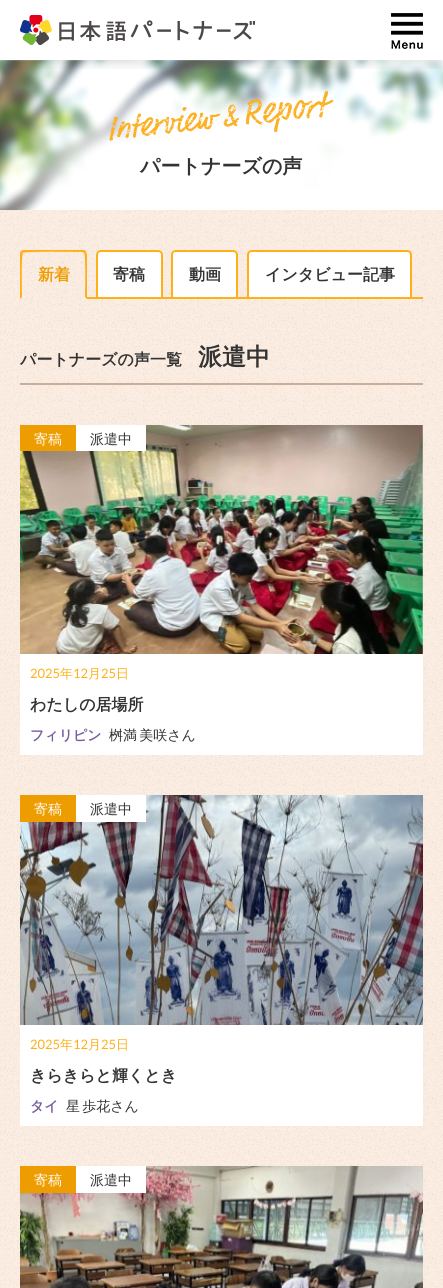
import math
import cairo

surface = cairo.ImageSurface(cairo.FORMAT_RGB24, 443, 1288)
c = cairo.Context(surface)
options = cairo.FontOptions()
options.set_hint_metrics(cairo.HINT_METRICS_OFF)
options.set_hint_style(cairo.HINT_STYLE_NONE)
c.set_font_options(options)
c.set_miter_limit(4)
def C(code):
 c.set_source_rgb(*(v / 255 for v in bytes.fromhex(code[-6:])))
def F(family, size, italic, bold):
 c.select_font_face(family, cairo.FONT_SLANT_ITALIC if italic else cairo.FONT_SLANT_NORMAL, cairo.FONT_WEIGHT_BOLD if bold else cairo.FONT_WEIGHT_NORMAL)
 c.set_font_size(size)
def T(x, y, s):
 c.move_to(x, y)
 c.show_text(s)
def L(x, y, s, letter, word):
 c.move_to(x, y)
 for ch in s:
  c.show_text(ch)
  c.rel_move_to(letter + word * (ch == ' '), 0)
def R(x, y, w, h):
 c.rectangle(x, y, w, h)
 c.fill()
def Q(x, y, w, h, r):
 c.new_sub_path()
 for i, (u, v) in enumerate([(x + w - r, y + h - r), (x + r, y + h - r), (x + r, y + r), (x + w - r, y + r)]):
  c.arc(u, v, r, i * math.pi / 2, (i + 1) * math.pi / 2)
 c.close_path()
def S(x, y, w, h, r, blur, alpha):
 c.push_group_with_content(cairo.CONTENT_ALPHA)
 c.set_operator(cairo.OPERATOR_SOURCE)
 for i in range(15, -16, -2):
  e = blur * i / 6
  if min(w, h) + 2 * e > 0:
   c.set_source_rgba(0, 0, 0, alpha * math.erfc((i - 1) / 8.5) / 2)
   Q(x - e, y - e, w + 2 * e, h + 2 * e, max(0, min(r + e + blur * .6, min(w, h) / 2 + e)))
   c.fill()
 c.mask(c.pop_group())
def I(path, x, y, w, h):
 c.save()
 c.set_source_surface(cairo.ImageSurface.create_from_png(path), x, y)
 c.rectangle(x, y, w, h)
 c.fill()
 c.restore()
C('ffffff')
c.paint()
I('3.png',0,60,443,150)
c.save()
c.rectangle(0,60,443,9)
c.clip()
C('000000')
S(0,5,443,60,0,5,.1)
c.restore()
I('1.png',20,15,235,30)
I('2.png',391,13,32,36)
I('4.png',109,91,225,50)
F('WenQuanYi Zen Hei',20,0,1)
C('333333')
T(140,173,'パートナーズの声')
I('5.png',0,210,443,1078)
I('6.png',20,230,403,936)
C('ffb018')
R(87,297,336,2)
I('7.png',20,250,67,49)
c.new_path()
c.move_to(25,250)
c.curve_to(24,250,22,250,21,251)
c.line_to(23,253)
c.curve_to(25,251,77,252,82,252)
c.line_to(84,253)
c.line_to(86,251)
c.curve_to(85,250,84,250,82,250)
c.close_path()
c.fill()
c.new_path()
c.move_to(87,299)
c.line_to(87,255)
c.curve_to(87,254,86,252,86,251)
c.line_to(84,253)
c.curve_to(86,255,85,292,85,297)
c.close_path()
c.fill()
c.new_path()
c.move_to(20,299)
c.line_to(22,297)
c.curve_to(22,292,21,255,23,253)
c.line_to(21,251)
c.curve_to(20,252,20,254,20,255)
c.close_path()
c.fill()
F('WenQuanYi Zen Hei',16,0,1)
C('ee9d00')
T(38,280,'新着')
C('ffffff')
c.new_path()
c.move_to(101,250)
c.line_to(158,250)
c.curve_to(161,250,163,252,163,255)
c.line_to(163,297)
c.line_to(96,297)
c.line_to(96,255)
c.curve_to(96,252,98,250,101,250)
c.close_path()
c.fill()
C('ffb018')
c.set_fill_rule(cairo.FILL_RULE_EVEN_ODD)
c.new_path()
c.move_to(101,250)
c.line_to(158,250)
c.curve_to(161,250,163,252,163,255)
c.line_to(163,297)
c.line_to(96,297)
c.line_to(96,255)
c.curve_to(96,252,98,250,101,250)
c.close_path()
c.move_to(101,252)
c.line_to(158,252)
c.curve_to(160,252,161,253,161,255)
c.line_to(161,297)
c.line_to(98,297)
c.line_to(98,255)
c.curve_to(98,253,99,252,101,252)
c.close_path()
c.fill()
C('333333')
T(113,280,'寄稿')
C('ffffff')
c.new_path()
c.move_to(176,250)
c.line_to(233,250)
c.curve_to(236,250,238,252,238,255)
c.line_to(238,297)
c.line_to(171,297)
c.line_to(171,255)
c.curve_to(171,252,173,250,176,250)
c.close_path()
c.fill()
C('ffb018')
c.new_path()
c.move_to(176,250)
c.line_to(233,250)
c.curve_to(236,250,238,252,238,255)
c.line_to(238,297)
c.line_to(171,297)
c.line_to(171,255)
c.curve_to(171,252,173,250,176,250)
c.close_path()
c.move_to(176,252)
c.line_to(233,252)
c.curve_to(235,252,236,253,236,255)
c.line_to(236,297)
c.line_to(173,297)
c.line_to(173,255)
c.curve_to(173,253,174,252,176,252)
c.close_path()
c.fill()
C('333333')
T(189,280,'動画')
C('ffffff')
c.new_path()
c.move_to(252,250)
c.line_to(407,250)
c.curve_to(410,250,412,252,412,255)
c.line_to(412,297)
c.line_to(247,297)
c.line_to(247,255)
c.curve_to(247,252,249,250,252,250)
c.close_path()
c.fill()
C('ffb018')
c.new_path()
c.move_to(252,250)
c.line_to(407,250)
c.curve_to(410,250,412,252,412,255)
c.line_to(412,297)
c.line_to(247,297)
c.line_to(247,255)
c.curve_to(247,252,249,250,252,250)
c.close_path()
c.move_to(252,252)
c.line_to(407,252)
c.curve_to(409,252,410,253,410,255)
c.line_to(410,297)
c.line_to(249,297)
c.line_to(249,255)
c.curve_to(249,253,250,252,252,252)
c.close_path()
c.fill()
C('333333')
T(265,280,'インタビュー記事')
C('c8ae9b')
R(20,383,403,2)
C('333333')
T(20,365,'パートナーズの声一覧')
F('WenQuanYi Zen Hei',24,0,1)
T(198,365,'派遣中')
C('ffffff')
R(20,425,403,330)
I('8.png',20,425,403,229)
C('ee9d00')
R(20,425,56,26)
F('WenQuanYi Zen Hei Medium',14,0,0)
C('ffffff')
T(34,444,'寄稿')
R(76,425,70,26)
C('333333')
T(90,444,'派遣中')
F('Lato',13,0,0)
C('ffb018')
T(30,678,'2025')
F('WenQuanYi Zen Hei Medium',13,0,0)
T(60,678,'年')
F('Lato',13,0,0)
T(73,678,'12')
F('WenQuanYi Zen Hei Medium',13,0,0)
T(88,678,'月')
F('Lato',13,0,0)
T(101,678,'25')
F('WenQuanYi Zen Hei Medium',13,0,0)
T(116,678,'日')
F('WenQuanYi Zen Hei',16,0,1)
C('333333')
T(30,710,'わたしの居場所')
F('WenQuanYi Zen Hei',14,0,1)
C('765d9d')
T(30,740,'フィリピン')
F('WenQuanYi Zen Hei Medium',14,0,0)
C('333333')
L(109,740,'桝満 美咲さん',0,-2)
C('ffffff')
R(20,1025,403,101)
I('9.png',20,795,403,230)
C('ee9d00')
R(20,795,56,27)
C('ffffff')
T(34,814,'寄稿')
R(76,795,70,27)
C('333333')
T(90,814,'派遣中')
F('Lato',13,0,0)
C('ffb018')
T(30,1049,'2025')
F('WenQuanYi Zen Hei Medium',13,0,0)
T(60,1049,'年')
F('Lato',13,0,0)
T(73,1049,'12')
F('WenQuanYi Zen Hei Medium',13,0,0)
T(88,1049,'月')
F('Lato',13,0,0)
T(101,1049,'25')
F('WenQuanYi Zen Hei Medium',13,0,0)
T(116,1049,'日')
F('WenQuanYi Zen Hei',16,0,1)
C('333333')
T(30,1081,'きらきらと輝くとき')
F('WenQuanYi Zen Hei',14,0,1)
C('765d9d')
T(30,1111,'タイ')
F('WenQuanYi Zen Hei Medium',14,0,0)
C('333333')
L(66,1111,'星 歩花さん',0,-2)
I('10.png',20,1166,403,122)
C('ee9d00')
R(20,1166,56,27)
C('ffffff')
T(34,1185,'寄稿')
R(76,1166,70,27)
C('333333')
T(90,1185,'派遣中')
surface.write_to_png('o.png')
